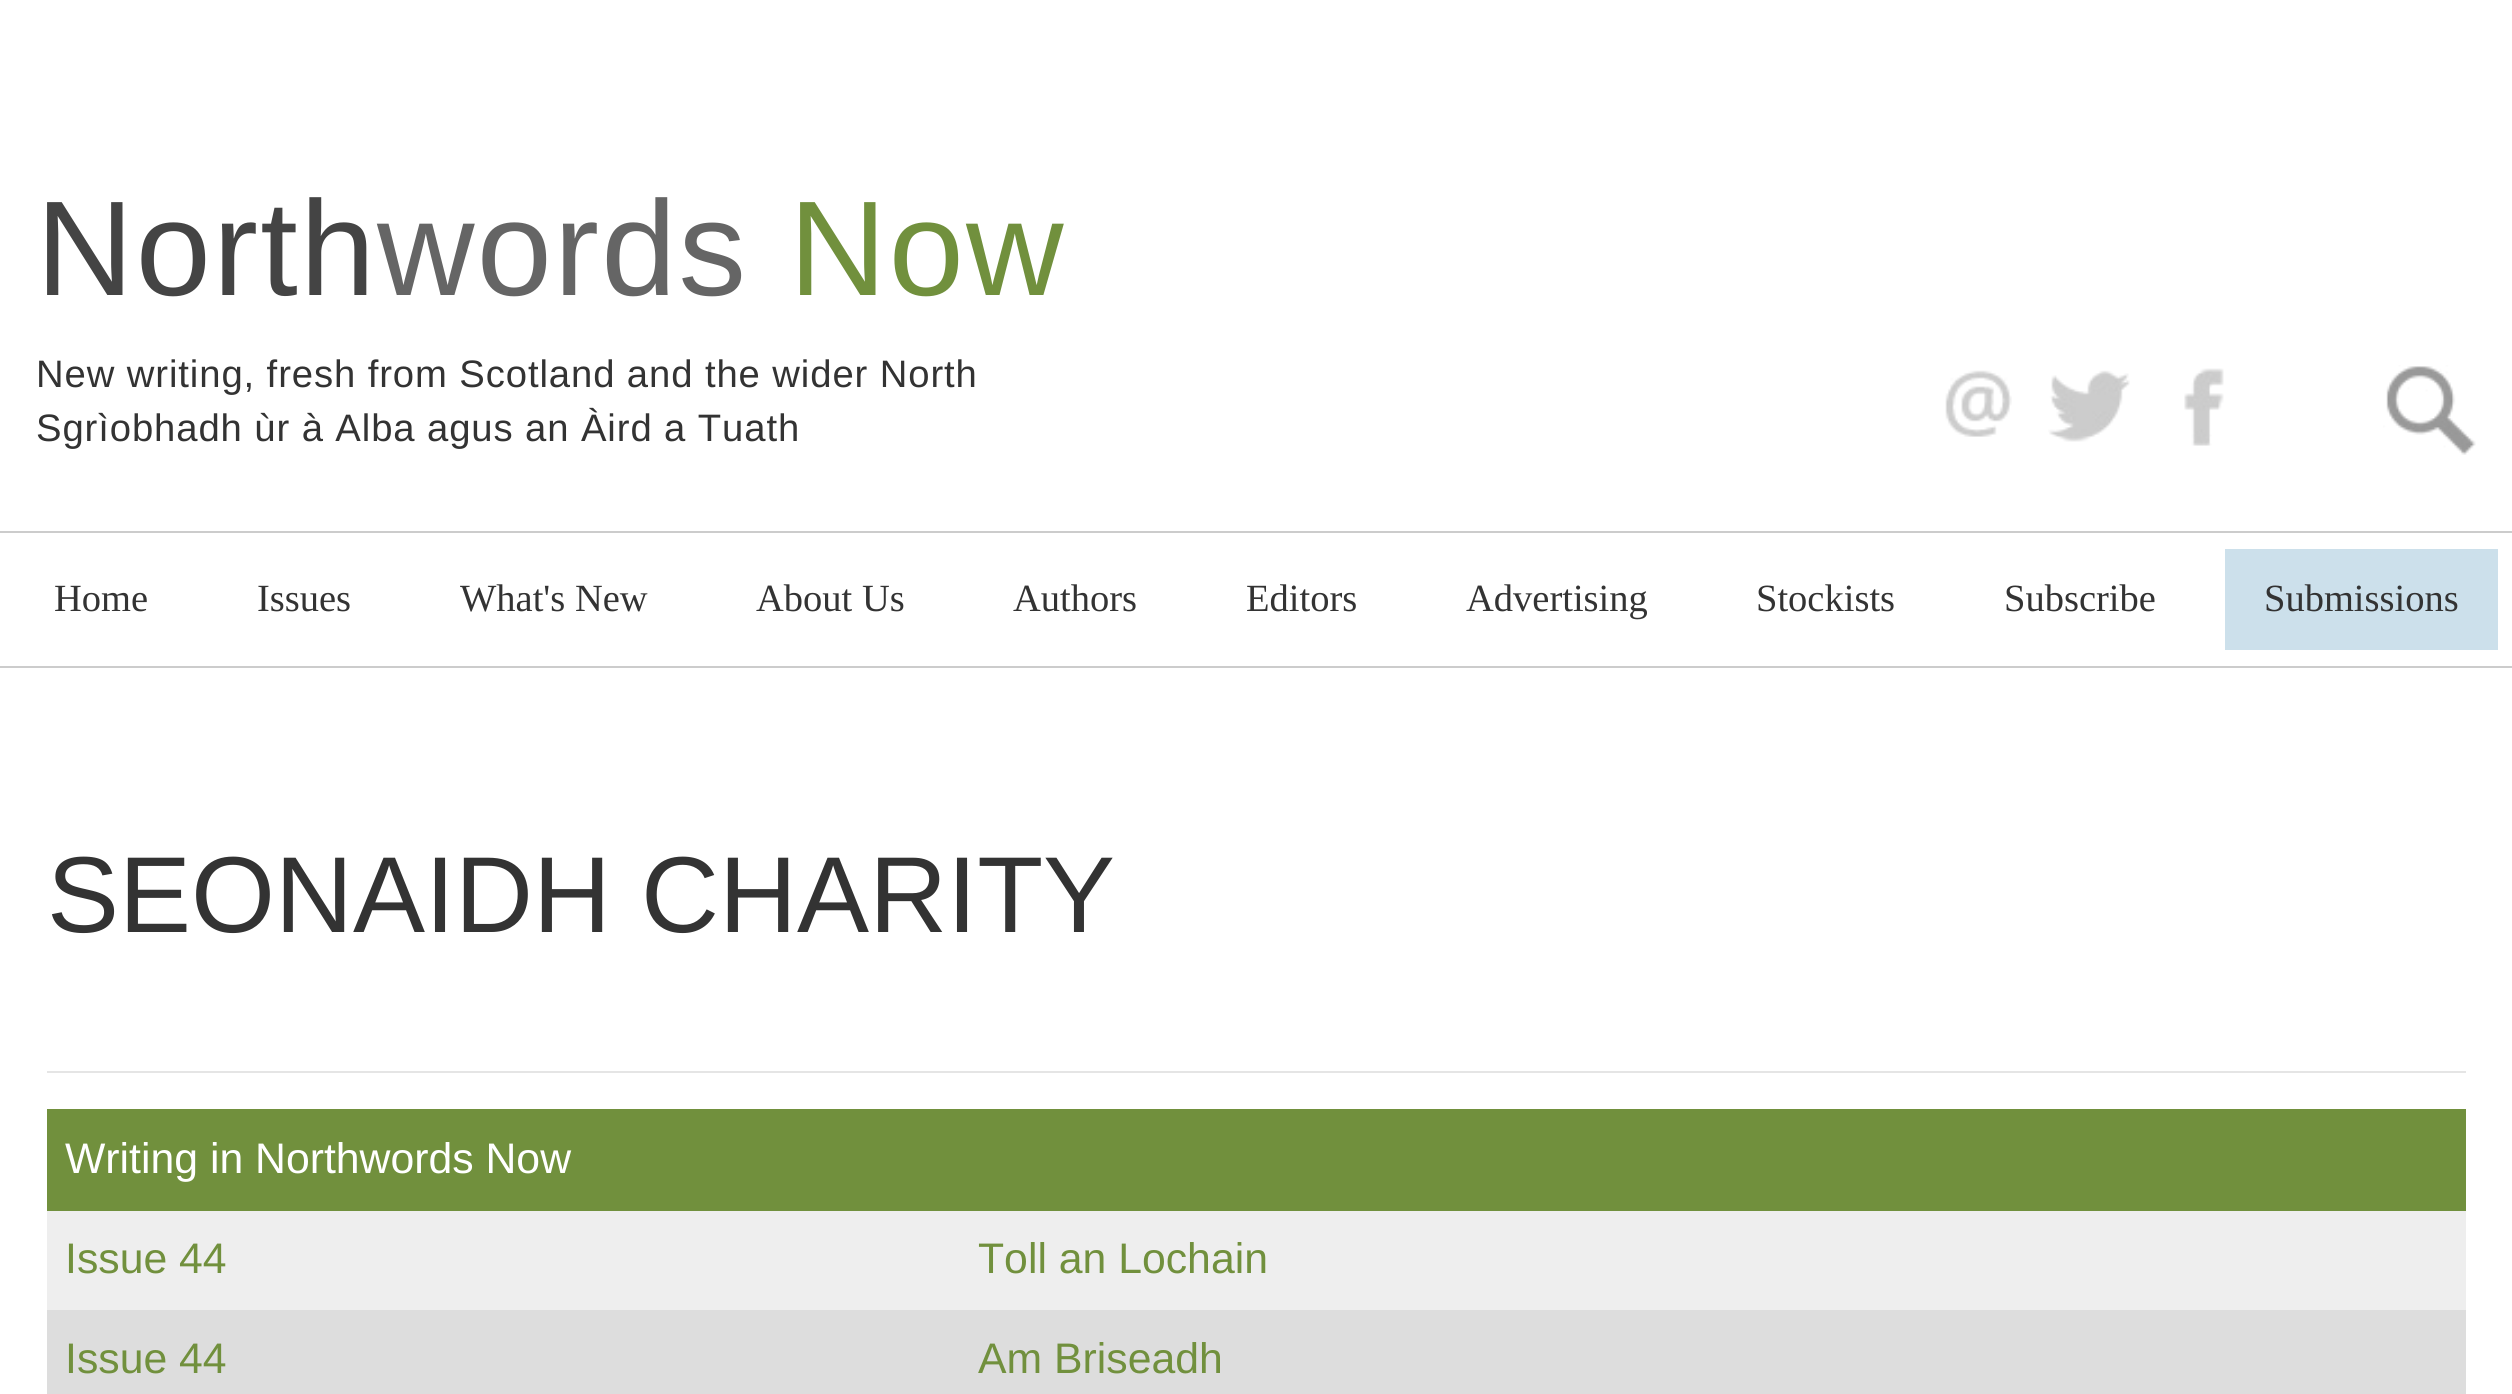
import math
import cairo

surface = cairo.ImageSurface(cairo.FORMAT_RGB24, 2512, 1394)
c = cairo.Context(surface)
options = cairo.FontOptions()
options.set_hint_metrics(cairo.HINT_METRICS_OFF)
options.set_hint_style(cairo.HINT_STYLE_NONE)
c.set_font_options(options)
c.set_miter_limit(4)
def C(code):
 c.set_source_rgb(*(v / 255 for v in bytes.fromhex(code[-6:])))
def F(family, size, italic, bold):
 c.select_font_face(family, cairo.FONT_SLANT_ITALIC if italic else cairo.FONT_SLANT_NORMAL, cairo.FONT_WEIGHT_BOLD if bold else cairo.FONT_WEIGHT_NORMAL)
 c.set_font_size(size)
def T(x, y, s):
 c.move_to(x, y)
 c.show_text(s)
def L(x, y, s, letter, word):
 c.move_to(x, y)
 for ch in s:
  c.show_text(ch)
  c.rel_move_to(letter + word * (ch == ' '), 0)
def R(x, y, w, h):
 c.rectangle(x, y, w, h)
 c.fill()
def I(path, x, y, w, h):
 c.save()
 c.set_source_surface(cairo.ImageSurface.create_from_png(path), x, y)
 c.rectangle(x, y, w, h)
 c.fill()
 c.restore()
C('ffffff')
c.paint()
F('Liberation Sans',135,0,0)
C('444444')
L(36,295,'North',2.25,0)
C('656565')
L(377,295,'words',2.25,0)
C('71903d')
L(789,295,'Now',2.25,0)
F('Liberation Sans',38.25,0,0)
C('333333')
L(36,387,'New writing, fresh from Scotland and the wider North',.9,0)
L(36,441,'Sgrìobhadh ùr à Alba agus an Àird a Tuath',.9,0)
I('1.png',1945,370,67,67)
I('2.png',2048,370,82,72)
I('3.png',2184,368,40,78)
I('4.png',2383,365,93,90)
C('cccccc')
R(0,531,2512,2)
R(0,666,2512,2)
F('Liberation Serif',38.5,0,0)
C('333333')
T(54,611,'Home')
T(257,611,'Issues')
T(460,611,'What\'s New')
T(756,611,'About Us')
T(1013,611,'Authors')
T(1246,611,'Editors')
T(1466,611,'Advertising')
T(1756,611,'Stockists')
T(2004,611,'Subscribe')
C('cce0eb')
R(2225,549,273,101)
C('333333')
T(2264,611,'Submissions')
F('Liberation Sans',108,0,0)
T(47,932,'SEONAIDH CHARITY')
C('e5e5e5')
R(47,1071,2419,2)
C('71903d')
R(47,1109,2419,102)
F('Liberation Sans',42.75,0,0)
C('ffffff')
T(65,1173,'Writing in Northwords Now')
C('eeeeee')
R(47,1211,2419,99)
C('71903d')
T(65,1273,'Issue 44')
T(978,1273,'Toll an Lochain')
C('dddddd')
R(47,1310,2419,84)
C('71903d')
T(65,1373,'Issue 44')
T(978,1373,'Am Briseadh')
surface.write_to_png('o.png')
